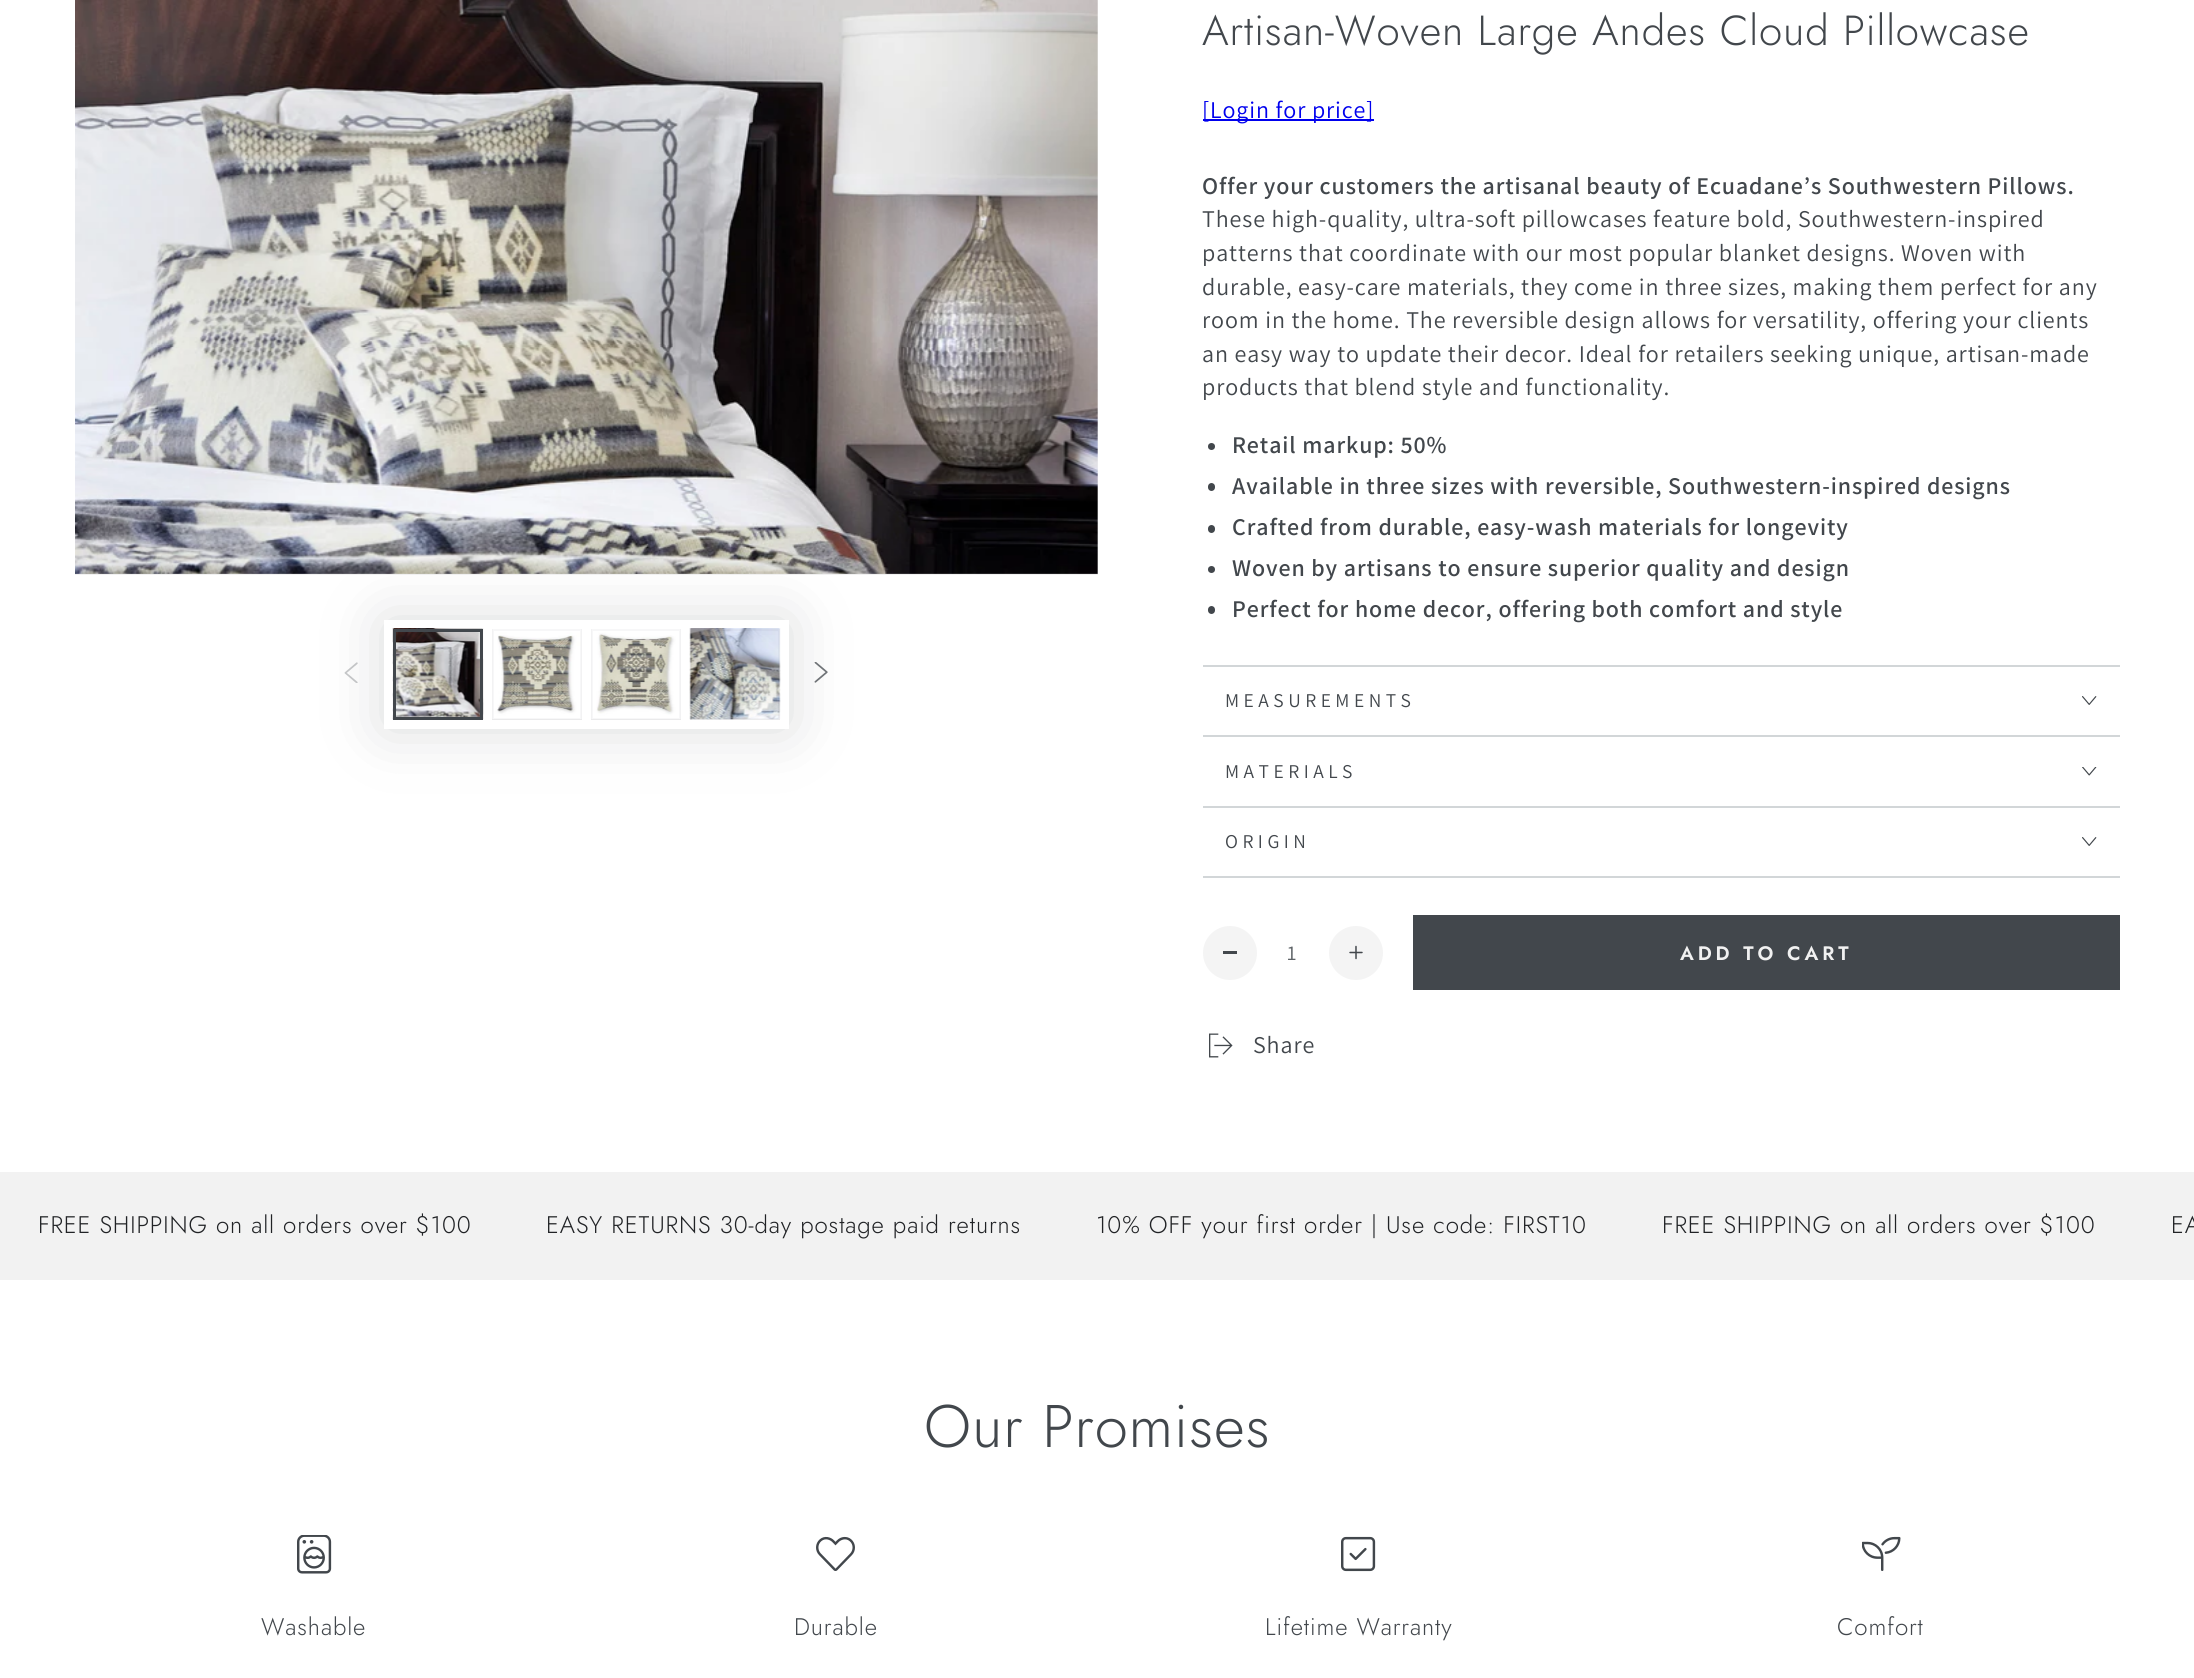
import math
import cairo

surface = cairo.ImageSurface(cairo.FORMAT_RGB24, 2194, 1678)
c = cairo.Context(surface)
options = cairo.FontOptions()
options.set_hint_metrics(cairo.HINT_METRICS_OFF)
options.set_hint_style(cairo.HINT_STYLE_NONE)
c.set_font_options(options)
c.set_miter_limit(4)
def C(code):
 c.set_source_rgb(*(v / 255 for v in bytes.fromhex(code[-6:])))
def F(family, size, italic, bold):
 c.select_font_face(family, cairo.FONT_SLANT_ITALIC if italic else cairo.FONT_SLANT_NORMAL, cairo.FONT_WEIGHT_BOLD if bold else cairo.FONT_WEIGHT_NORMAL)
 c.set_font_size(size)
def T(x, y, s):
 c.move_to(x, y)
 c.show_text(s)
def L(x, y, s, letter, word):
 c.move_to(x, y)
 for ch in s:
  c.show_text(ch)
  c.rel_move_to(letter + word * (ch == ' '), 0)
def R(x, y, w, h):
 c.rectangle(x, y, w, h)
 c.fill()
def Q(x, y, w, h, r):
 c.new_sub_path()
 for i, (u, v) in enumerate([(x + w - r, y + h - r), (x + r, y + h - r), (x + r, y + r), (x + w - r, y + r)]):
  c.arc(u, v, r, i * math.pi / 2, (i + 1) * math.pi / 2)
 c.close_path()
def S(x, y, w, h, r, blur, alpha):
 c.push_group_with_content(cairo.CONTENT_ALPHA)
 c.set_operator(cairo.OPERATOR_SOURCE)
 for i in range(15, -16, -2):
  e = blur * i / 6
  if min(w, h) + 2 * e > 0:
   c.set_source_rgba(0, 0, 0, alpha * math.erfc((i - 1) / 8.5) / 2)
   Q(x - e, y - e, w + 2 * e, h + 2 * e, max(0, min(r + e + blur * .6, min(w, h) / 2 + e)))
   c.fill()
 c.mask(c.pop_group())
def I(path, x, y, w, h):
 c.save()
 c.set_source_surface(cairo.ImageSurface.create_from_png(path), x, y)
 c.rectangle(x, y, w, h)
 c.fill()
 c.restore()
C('ffffff')
c.paint()
C('f1f1f1')
R(75,0,1023,575)
I('1.png',75,0,1023,574)
c.save()
c.set_fill_rule(cairo.FILL_RULE_EVEN_ODD)
c.new_path()
c.move_to(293,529)
c.line_to(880,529)
c.line_to(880,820)
c.line_to(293,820)
c.close_path()
c.move_to(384,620)
c.line_to(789,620)
c.line_to(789,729)
c.line_to(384,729)
c.close_path()
c.clip()
C('42474c')
S(384,620,405,109,0,30,.2)
c.restore()
I('2.png',392,628,92,92)
c.rectangle(394.5,630.5,87,88)
C('42474c')
c.set_line_width(3)
c.stroke()
C('f1f1f1')
R(492,629,90,91)
I('3.png',492,629,90,90)
c.rectangle(493,630,88,89)
c.set_source_rgba(0.259,0.278,0.298,0.04)
c.set_line_width(2)
c.stroke()
C('f1f1f1')
R(591,629,90,91)
I('4.png',591,629,90,90)
c.rectangle(592,630,88,89)
c.set_source_rgba(0.259,0.278,0.298,0.04)
c.stroke()
C('f1f1f1')
R(690,629,90,91)
I('5.png',689,628,92,92)
c.rectangle(691,630,88,89)
c.set_source_rgba(0.259,0.278,0.298,0.04)
c.stroke()
I('6.png',344,662,14,21)
I('7.png',814,662,14,21)
F('Jost Light',42,0,0)
C('42474c')
L(1202,45,'Artisan-Woven Large Andes Cloud Pillowcase',.9,0)
C('0000ee')
R(1203,119,171,2)
F('Assistant',24,0,0)
L(1202,118,'[Login for price]',.9,0)
F('Assistant SemiBold',24,0,0)
C('42474c')
L(1202,194,'Offer your customers the artisanal beauty of Ecuadane’s Southwestern Pillows.',.9,0)
F('Assistant',24,0,0)
L(1202,227,'These high-quality, ultra-soft pillowcases feature bold, Southwestern-inspired',.9,0)
L(1202,261,'patterns that coordinate with our most popular blanket designs. Woven with',.9,0)
L(1202,295,'durable, easy-care materials, they come in three sizes, making them perfect for any',.9,0)
L(1202,328,'room in the home. The reversible design allows for versatility, offering your clients',.9,0)
L(1202,362,'an easy way to update their decor. Ideal for retailers seeking unique, artisan-made',.9,0)
L(1202,395,'products that blend style and functionality.',.9,0)
c.new_path()
c.arc(1211.5,446.5,3.5,0,2 * math.pi)
c.fill()
F('Assistant SemiBold',24,0,0)
L(1232,453,'Retail markup: 50%',.9,0)
Q(1208,483,7,8,3.5)
c.fill()
L(1232,494,'Available in three sizes with reversible, Southwestern-inspired designs',.9,0)
Q(1208,525,7,8,3.5)
c.fill()
L(1232,535,'Crafted from durable, easy-wash materials for longevity',.9,0)
c.new_path()
c.arc(1211.5,569.5,3.5,0,2 * math.pi)
c.fill()
L(1232,576,'Woven by artisans to ensure superior quality and design',.9,0)
Q(1208,606,7,8,3.5)
c.fill()
L(1232,617,'Perfect for home decor, offering both comfort and style',.9,0)
C('d2d6d8')
R(1203,665,917,2)
R(1203,735,917,2)
F('Assistant',19.5,0,0)
C('42474c')
L(1225,707,'MEASUREMENTS',4.5,0)
I('8.png',2082,696,15,9)
C('d2d6d8')
R(1203,806,917,2)
C('42474c')
L(1225,778,'MATERIALS',4.5,0)
I('9.png',2082,767,15,9)
C('d2d6d8')
R(1203,876,917,2)
C('42474c')
L(1225,848,'ORIGIN',4.5,0)
I('8.png',2082,837,15,9)
C('f4f4f4')
c.arc(1230,953,27,0,2 * math.pi)
c.fill()
C('42474c')
R(1223,951,14,3)
F('Assistant',21,0,0)
C('5e6367')
T(1287,960,'1')
C('f4f4f4')
c.new_path()
c.arc(1356,953,27,0,2 * math.pi)
c.fill()
I('10.png',1349,945,14,15)
C('42474c')
R(1413,915,707,75)
F('Jost SemiBold',19.5,0,0)
C('f1f1f1')
L(1680,960,'ADD TO CART',3.9,0)
I('11.png',1209,1033,24,25)
F('Assistant',24,0,0)
C('42474c')
L(1253,1053,'Share',.9,0)
C('f2f2f2')
R(0,1172,2194,108)
F('Jost Light',24,0,0)
C('212326')
L(38,1233,'FREE SHIPPING on all orders over $100',.9,0)
L(546,1233,'EASY RETURNS 30-day postage paid returns',.9,0)
L(1096,1233,'10% OFF your first order | Use code: FIRST10',.9,0)
L(1662,1233,'FREE SHIPPING on all orders over $100',.9,0)
L(2171,1233,'EA',.9,0)
F('Jost Light',60,0,0)
C('42474c')
L(924,1447,'Our Promises',.9,0)
I('12.png',297,1535,35,39)
F('Jost Light',24,0,0)
L(261,1635,'Washable',.9,0)
I('13.png',816,1536,39,35)
L(794,1635,'Durable',.9,0)
I('14.png',1341,1536,35,36)
L(1265,1635,'Lifetime Warranty',.9,0)
I('15.png',1862,1536,39,35)
L(1837,1635,'Comfort',.9,0)
surface.write_to_png('o.png')
